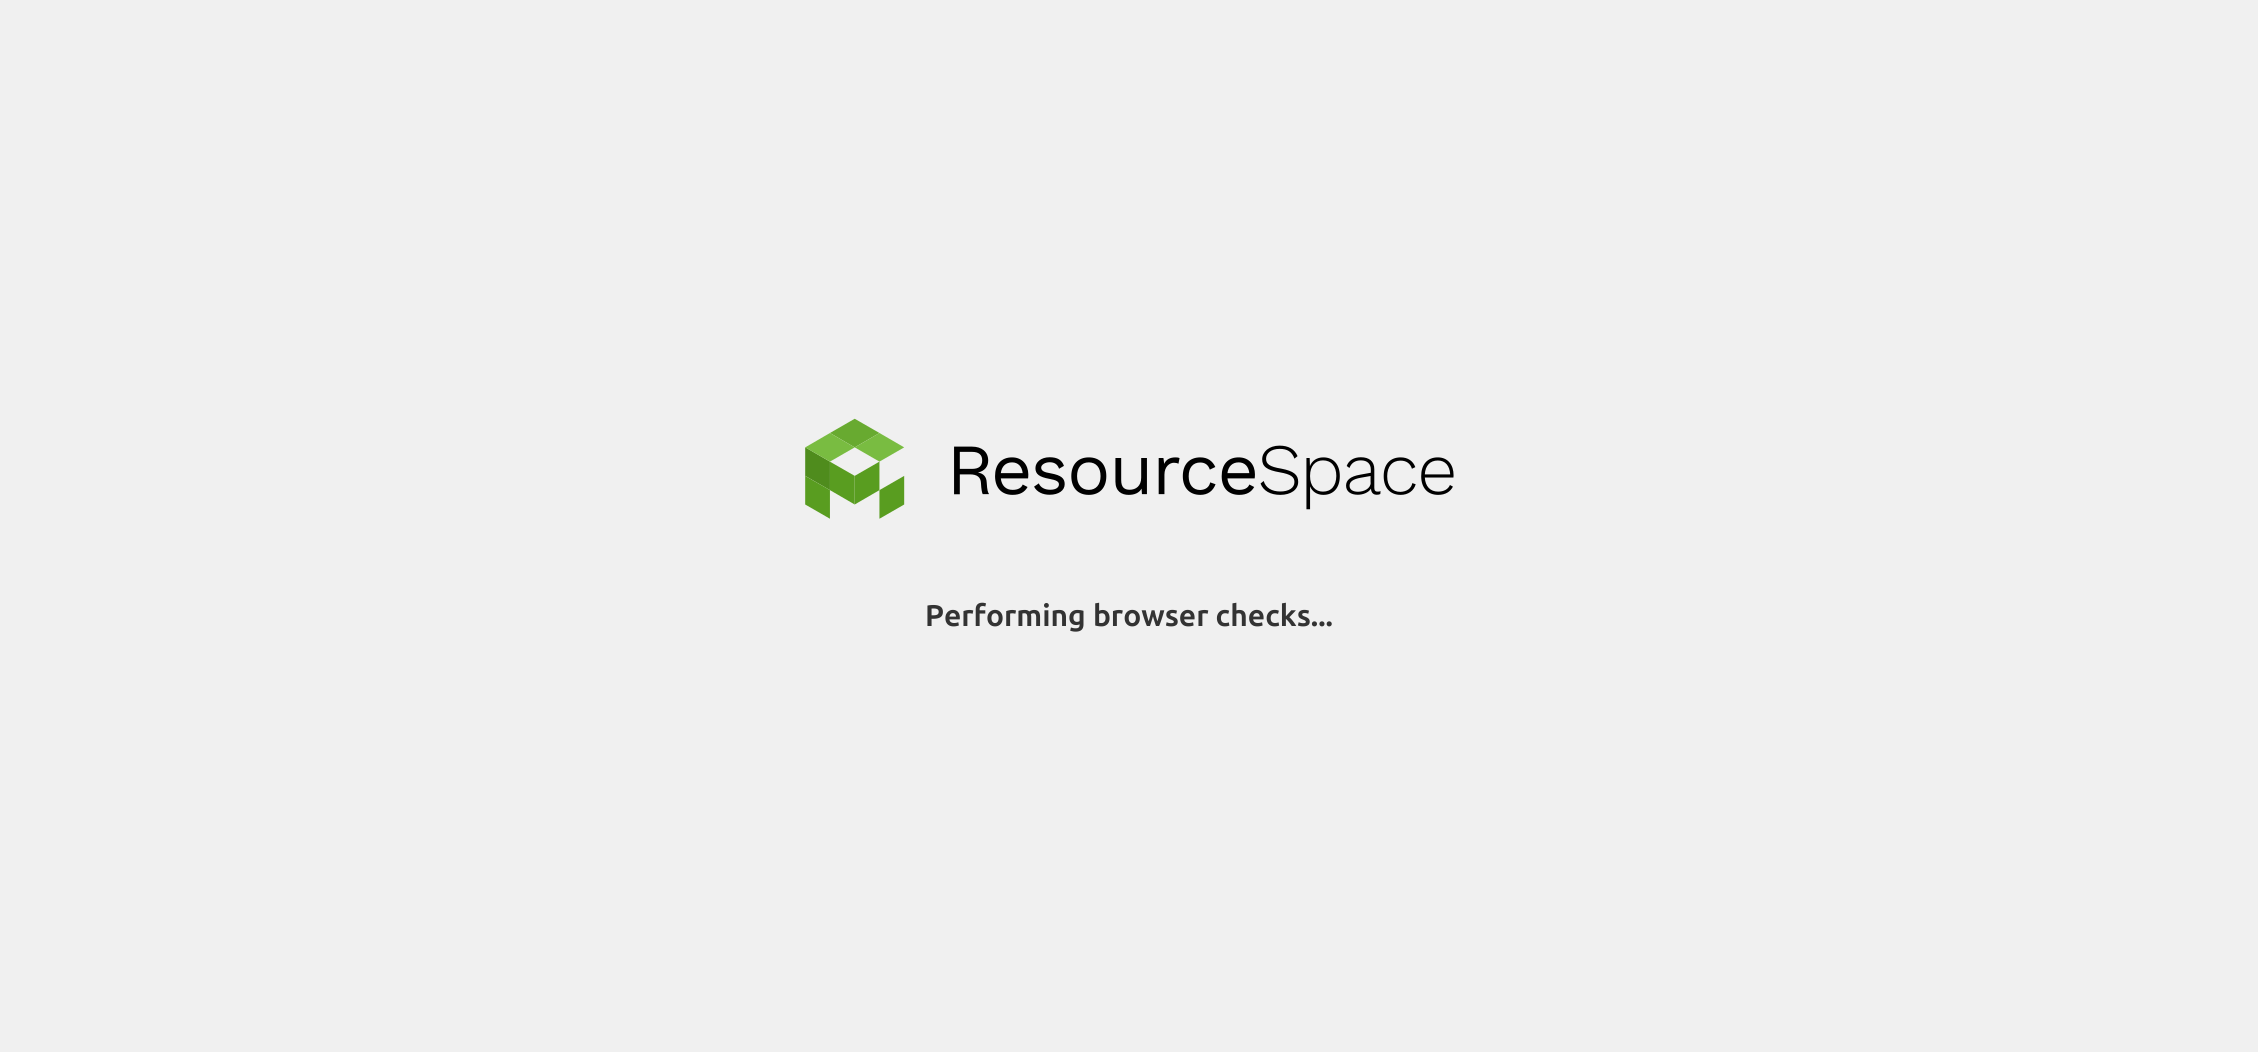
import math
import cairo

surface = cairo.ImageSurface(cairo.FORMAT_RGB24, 2258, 1052)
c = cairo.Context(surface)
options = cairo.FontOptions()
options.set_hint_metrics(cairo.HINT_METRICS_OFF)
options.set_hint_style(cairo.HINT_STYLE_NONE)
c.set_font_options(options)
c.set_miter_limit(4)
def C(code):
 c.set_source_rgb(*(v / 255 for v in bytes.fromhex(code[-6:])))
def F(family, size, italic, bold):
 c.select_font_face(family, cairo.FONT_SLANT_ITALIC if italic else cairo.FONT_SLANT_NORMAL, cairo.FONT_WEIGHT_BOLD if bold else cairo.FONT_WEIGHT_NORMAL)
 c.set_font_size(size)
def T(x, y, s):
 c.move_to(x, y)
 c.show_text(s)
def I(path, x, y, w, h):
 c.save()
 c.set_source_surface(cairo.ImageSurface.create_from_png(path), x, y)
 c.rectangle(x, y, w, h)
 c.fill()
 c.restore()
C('f0f0f0')
c.paint()
I('1.png',805,418,649,101)
F('Ubuntu',30,0,1)
C('333333')
T(925,626,'Performing browser checks...')
surface.write_to_png('o.png')
